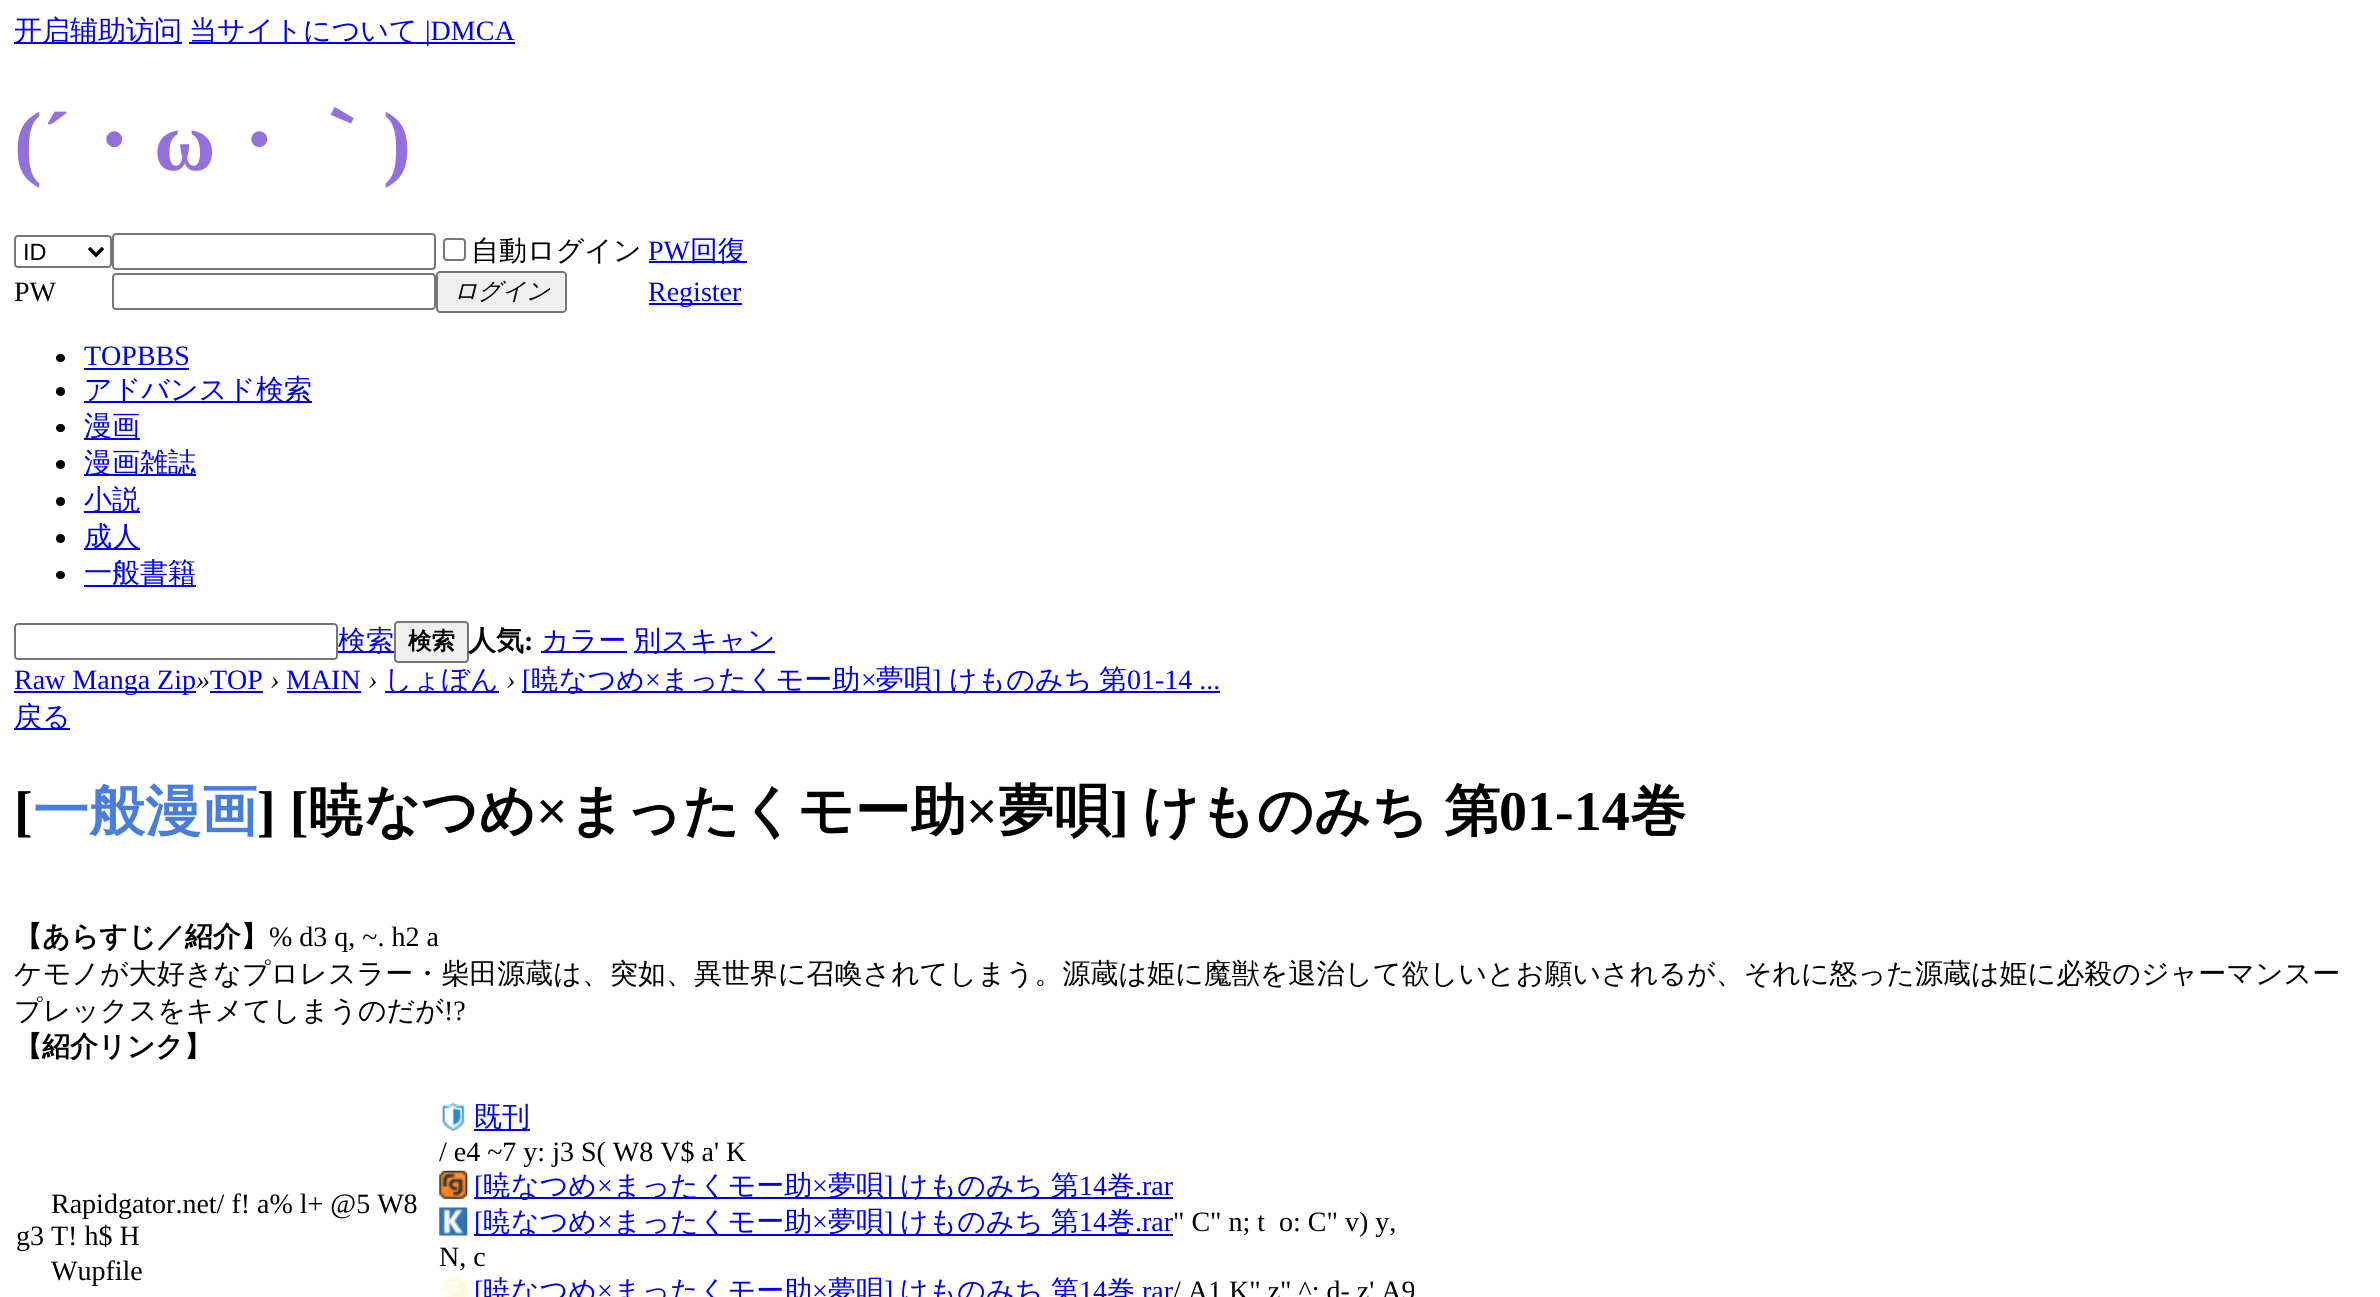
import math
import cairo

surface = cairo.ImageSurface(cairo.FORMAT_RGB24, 2380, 1297)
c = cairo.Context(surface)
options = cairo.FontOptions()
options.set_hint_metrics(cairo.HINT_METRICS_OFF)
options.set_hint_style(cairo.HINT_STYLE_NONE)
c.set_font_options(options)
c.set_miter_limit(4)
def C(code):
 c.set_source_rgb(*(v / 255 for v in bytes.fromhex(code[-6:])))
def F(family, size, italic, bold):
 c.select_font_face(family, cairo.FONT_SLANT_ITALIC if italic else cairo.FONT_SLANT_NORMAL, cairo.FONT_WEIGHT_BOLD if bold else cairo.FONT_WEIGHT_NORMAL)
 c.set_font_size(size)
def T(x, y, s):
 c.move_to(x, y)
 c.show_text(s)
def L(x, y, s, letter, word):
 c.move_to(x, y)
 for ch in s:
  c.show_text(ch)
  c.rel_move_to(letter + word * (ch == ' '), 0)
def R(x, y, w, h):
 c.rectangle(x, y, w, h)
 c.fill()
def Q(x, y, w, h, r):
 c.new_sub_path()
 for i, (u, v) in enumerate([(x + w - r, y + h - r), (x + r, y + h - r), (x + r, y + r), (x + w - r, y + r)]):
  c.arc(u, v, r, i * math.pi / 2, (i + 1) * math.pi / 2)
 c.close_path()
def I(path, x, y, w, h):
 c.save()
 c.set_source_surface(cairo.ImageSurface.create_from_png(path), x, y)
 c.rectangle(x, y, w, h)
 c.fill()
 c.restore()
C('ffffff')
c.paint()
C('0000ee')
R(14,42,168,2)
F('WenQuanYi Zen Hei Medium',28,0,0)
T(14,40,'开启辅助访问')
R(189,42,326,2)
T(189,40,'当サイトについて')
F('Liberation Serif',28,0,0)
T(425,40,'|DMCA')
F('Liberation Serif',84,0,1)
C('9370db')
T(14,170,'(´')
F('WenQuanYi Zen Hei',84,0,1)
T(70,170,'・')
F('Liberation Serif',84,0,1)
T(154,170,'ω')
F('WenQuanYi Zen Hei',84,0,1)
T(215,170,'・｀')
F('Liberation Serif',84,0,1)
T(383,170,')')
Q(15,236,96,31,3)
C('767676')
c.stroke()
c.new_path()
c.move_to(89,248)
c.line_to(96,255)
c.line_to(103,248)
C('000000')
c.set_line_width(3.5)
c.stroke()
F('Liberation Sans',23.5,0,0)
T(23,260,'ID')
Q(113,234,322,35,3)
C('767676')
c.set_line_width(2)
c.stroke()
Q(444,239,21,21,3)
c.stroke()
F('WenQuanYi Zen Hei Medium',28,0,0)
C('000000')
T(471,260,'自動ログイン')
F('Liberation Serif',28,0,0)
C('0000ee')
T(648,260,'PW')
R(649,261,98,2)
F('WenQuanYi Zen Hei Medium',28,0,0)
T(690,260,'回復')
F('Liberation Serif',28,0,0)
C('000000')
T(14,301,'PW')
Q(113,274,322,35,3)
C('767676')
c.stroke()
C('efefef')
Q(437,272,129,40,3)
c.fill_preserve()
C('767676')
c.stroke()
F('WenQuanYi Zen Hei Medium',23.5,1,0)
C('000000')
T(454,299,'ログイン')
C('0000ee')
R(649,303,93,2)
F('Liberation Serif',28,0,0)
T(648,301,'Register')
C('000000')
Q(56,354,9,8,4)
c.fill()
C('0000ee')
T(84,365,'TOPBBS')
R(84,368,105,2)
C('000000')
c.new_path()
c.arc(60.5,391.5,4.5,0,2 * math.pi)
c.fill()
C('0000ee')
R(84,401,228,2)
F('WenQuanYi Zen Hei Medium',28,0,0)
T(84,399,'アドバンスド検索')
C('000000')
Q(56,424,9,8,4)
c.fill()
C('0000ee')
R(84,438,56,2)
T(84,435,'漫画')
C('000000')
c.new_path()
c.arc(60.5,464.5,4.5,0,2 * math.pi)
c.fill()
C('0000ee')
R(84,474,112,2)
T(84,472,'漫画雑誌')
C('000000')
c.new_path()
c.arc(60.5,501.5,4.5,0,2 * math.pi)
c.fill()
C('0000ee')
R(84,511,56,2)
T(84,509,'小説')
C('000000')
c.new_path()
c.arc(60.5,538.5,4.5,0,2 * math.pi)
c.fill()
C('0000ee')
R(84,548,56,2)
T(84,546,'成人')
C('000000')
Q(56,571,9,8,4)
c.fill()
C('0000ee')
R(84,585,112,2)
T(84,582,'一般書籍')
Q(15,624,322,35,3)
C('767676')
c.stroke()
C('0000ee')
R(338,651,56,2)
T(338,650,'検索')
C('efefef')
Q(395,622,73,40,3)
c.fill_preserve()
C('767676')
c.stroke()
F('WenQuanYi Zen Hei',23.5,0,1)
C('000000')
T(408,649,'検索')
F('WenQuanYi Zen Hei',28,0,1)
T(468,650,'人気')
F('Liberation Serif',28,0,1)
T(524,650,':')
C('0000ee')
R(541,651,86,2)
F('WenQuanYi Zen Hei Medium',28,0,0)
T(541,650,'カラー')
R(634,651,141,2)
T(633,650,'別スキャン')
R(14,691,182,2)
F('Liberation Serif',28,0,0)
T(14,689,'Raw Manga Zip')
F('Liberation Serif',28,1,0)
C('000000')
T(196,689,'»')
F('Liberation Serif',28,0,0)
C('0000ee')
T(210,689,'TOP')
R(210,691,53,2)
F('Liberation Serif',28,1,0)
C('000000')
T(270,689,'›')
F('Liberation Serif',28,0,0)
C('0000ee')
T(286,689,'MAIN')
R(287,691,74,2)
F('Liberation Serif',28,1,0)
C('000000')
T(368,689,'›')
C('0000ee')
R(385,691,114,2)
F('WenQuanYi Zen Hei Medium',28,0,0)
T(384,689,'しょぼん')
F('Liberation Serif',28,1,0)
C('000000')
T(506,689,'›')
C('0000ee')
R(522,691,698,2)
F('Liberation Serif',28,0,0)
T(522,689,'[')
F('WenQuanYi Zen Hei Medium',28,0,0)
T(531,689,'暁なつめ')
F('Liberation Serif',28,0,0)
T(645,689,'×')
F('WenQuanYi Zen Hei Medium',28,0,0)
T(661,689,'まったくモー助')
F('Liberation Serif',28,0,0)
T(861,689,'×')
F('WenQuanYi Zen Hei Medium',28,0,0)
T(876,689,'夢唄')
F('Liberation Serif',28,0,0)
T(932,689,']')
F('WenQuanYi Zen Hei Medium',28,0,0)
T(949,689,'けものみち')
T(1099,689,'第')
F('Liberation Serif',28,0,0)
T(1127,689,'01-14 ...')
R(14,728,56,2)
F('WenQuanYi Zen Hei Medium',28,0,0)
T(14,726,'戻る')
F('Liberation Serif',56,0,1)
C('000000')
T(14,830,'[')
F('WenQuanYi Zen Hei',56,0,1)
C('477ddc')
T(33,830,'一般漫画')
F('Liberation Serif',56,0,1)
C('000000')
T(257,830,'] [')
F('WenQuanYi Zen Hei',56,0,1)
T(308,830,'暁なつめ')
F('Liberation Serif',56,0,1)
T(536,830,'×')
F('WenQuanYi Zen Hei',56,0,1)
T(568,830,'まったくモー助')
F('Liberation Serif',56,0,1)
T(966,830,'×')
F('WenQuanYi Zen Hei',56,0,1)
T(998,830,'夢唄')
F('Liberation Serif',56,0,1)
T(1110,830,']')
F('WenQuanYi Zen Hei',56,0,1)
L(1142,830,'けものみち 第',0,-1)
F('Liberation Serif',56,0,1)
T(1499,830,'01-14')
F('WenQuanYi Zen Hei',56,0,1)
T(1630,830,'巻')
F('WenQuanYi Zen Hei',28,0,1)
T(14,946,'【あらすじ／紹介】')
F('Liberation Serif',28,0,0)
T(269,946,'% d3 q, ~. h2 a')
F('WenQuanYi Zen Hei Medium',28,0,0)
T(14,983,'ケモノが大好きなプロレスラー・柴田源蔵は、突如、異世界に召喚されてしまう。源蔵は姫に魔獣を退治して欲しいとお願いされるが、それに怒った源蔵は姫に必殺のジャーマンスー')
T(14,1020,'プレックスをキメてしまうのだが')
F('Liberation Serif',28,0,0)
T(444,1020,'!?')
F('WenQuanYi Zen Hei',28,0,1)
T(14,1056,'【紹介リンク】')
F('Liberation Serif',28,0,0)
T(51,1213,'Rapidgator.net/ f! a% l+ @5 W8')
T(16,1245,'g3 T! h$ H')
T(51,1280,'Wupfile')
I('1.png',442,1102,23,29)
C('0000ee')
R(474,1129,56,2)
F('WenQuanYi Zen Hei Medium',28,0,0)
T(474,1126,'既刊')
F('Liberation Serif',28,0,0)
C('000000')
T(439,1161,'/ e4 ~7 y: j3 S( W8 V$ a\' K')
I('2.png',439,1170,29,29)
C('0000ee')
R(474,1197,699,2)
T(474,1195,'[')
F('WenQuanYi Zen Hei Medium',28,0,0)
T(483,1195,'暁なつめ')
F('Liberation Serif',28,0,0)
T(597,1195,'×')
F('WenQuanYi Zen Hei Medium',28,0,0)
T(613,1195,'まったくモー助')
F('Liberation Serif',28,0,0)
T(812,1195,'×')
F('WenQuanYi Zen Hei Medium',28,0,0)
T(828,1195,'夢唄')
F('Liberation Serif',28,0,0)
T(884,1195,']')
F('WenQuanYi Zen Hei Medium',28,0,0)
L(900,1195,'けものみち 第',0,-1)
F('Liberation Serif',28,0,0)
T(1079,1195,'14')
F('WenQuanYi Zen Hei Medium',28,0,0)
T(1107,1195,'巻')
F('Liberation Serif',28,0,0)
T(1135,1195,'.rar')
I('3.png',439,1207,29,29)
R(474,1234,699,2)
T(474,1231,'[')
F('WenQuanYi Zen Hei Medium',28,0,0)
T(483,1231,'暁なつめ')
F('Liberation Serif',28,0,0)
T(597,1231,'×')
F('WenQuanYi Zen Hei Medium',28,0,0)
T(613,1231,'まったくモー助')
F('Liberation Serif',28,0,0)
T(812,1231,'×')
F('WenQuanYi Zen Hei Medium',28,0,0)
T(828,1231,'夢唄')
F('Liberation Serif',28,0,0)
T(884,1231,']')
F('WenQuanYi Zen Hei Medium',28,0,0)
L(900,1231,'けものみち 第',0,-1)
F('Liberation Serif',28,0,0)
T(1079,1231,'14')
F('WenQuanYi Zen Hei Medium',28,0,0)
T(1107,1231,'巻')
F('Liberation Serif',28,0,0)
T(1135,1231,'.rar')
C('000000')
T(1173,1231,'" C" n; t  o: C" v) y,')
T(439,1266,'N, c')
I('4.png',439,1277,29,20)
C('0000ee')
T(474,1300,'[')
F('WenQuanYi Zen Hei Medium',28,0,0)
T(483,1300,'暁なつめ')
F('Liberation Serif',28,0,0)
T(597,1300,'×')
F('WenQuanYi Zen Hei Medium',28,0,0)
T(613,1300,'まったくモー助')
F('Liberation Serif',28,0,0)
T(812,1300,'×')
F('WenQuanYi Zen Hei Medium',28,0,0)
T(828,1300,'夢唄')
F('Liberation Serif',28,0,0)
T(884,1300,']')
F('WenQuanYi Zen Hei Medium',28,0,0)
L(900,1300,'けものみち 第',0,-1)
F('Liberation Serif',28,0,0)
T(1079,1300,'14')
F('WenQuanYi Zen Hei Medium',28,0,0)
T(1107,1300,'巻')
F('Liberation Serif',28,0,0)
T(1142,1300,'rar')
C('000000')
T(1173,1300,'/ A1 K" z" ^; d- z\' A9')
surface.write_to_png('o.png')
